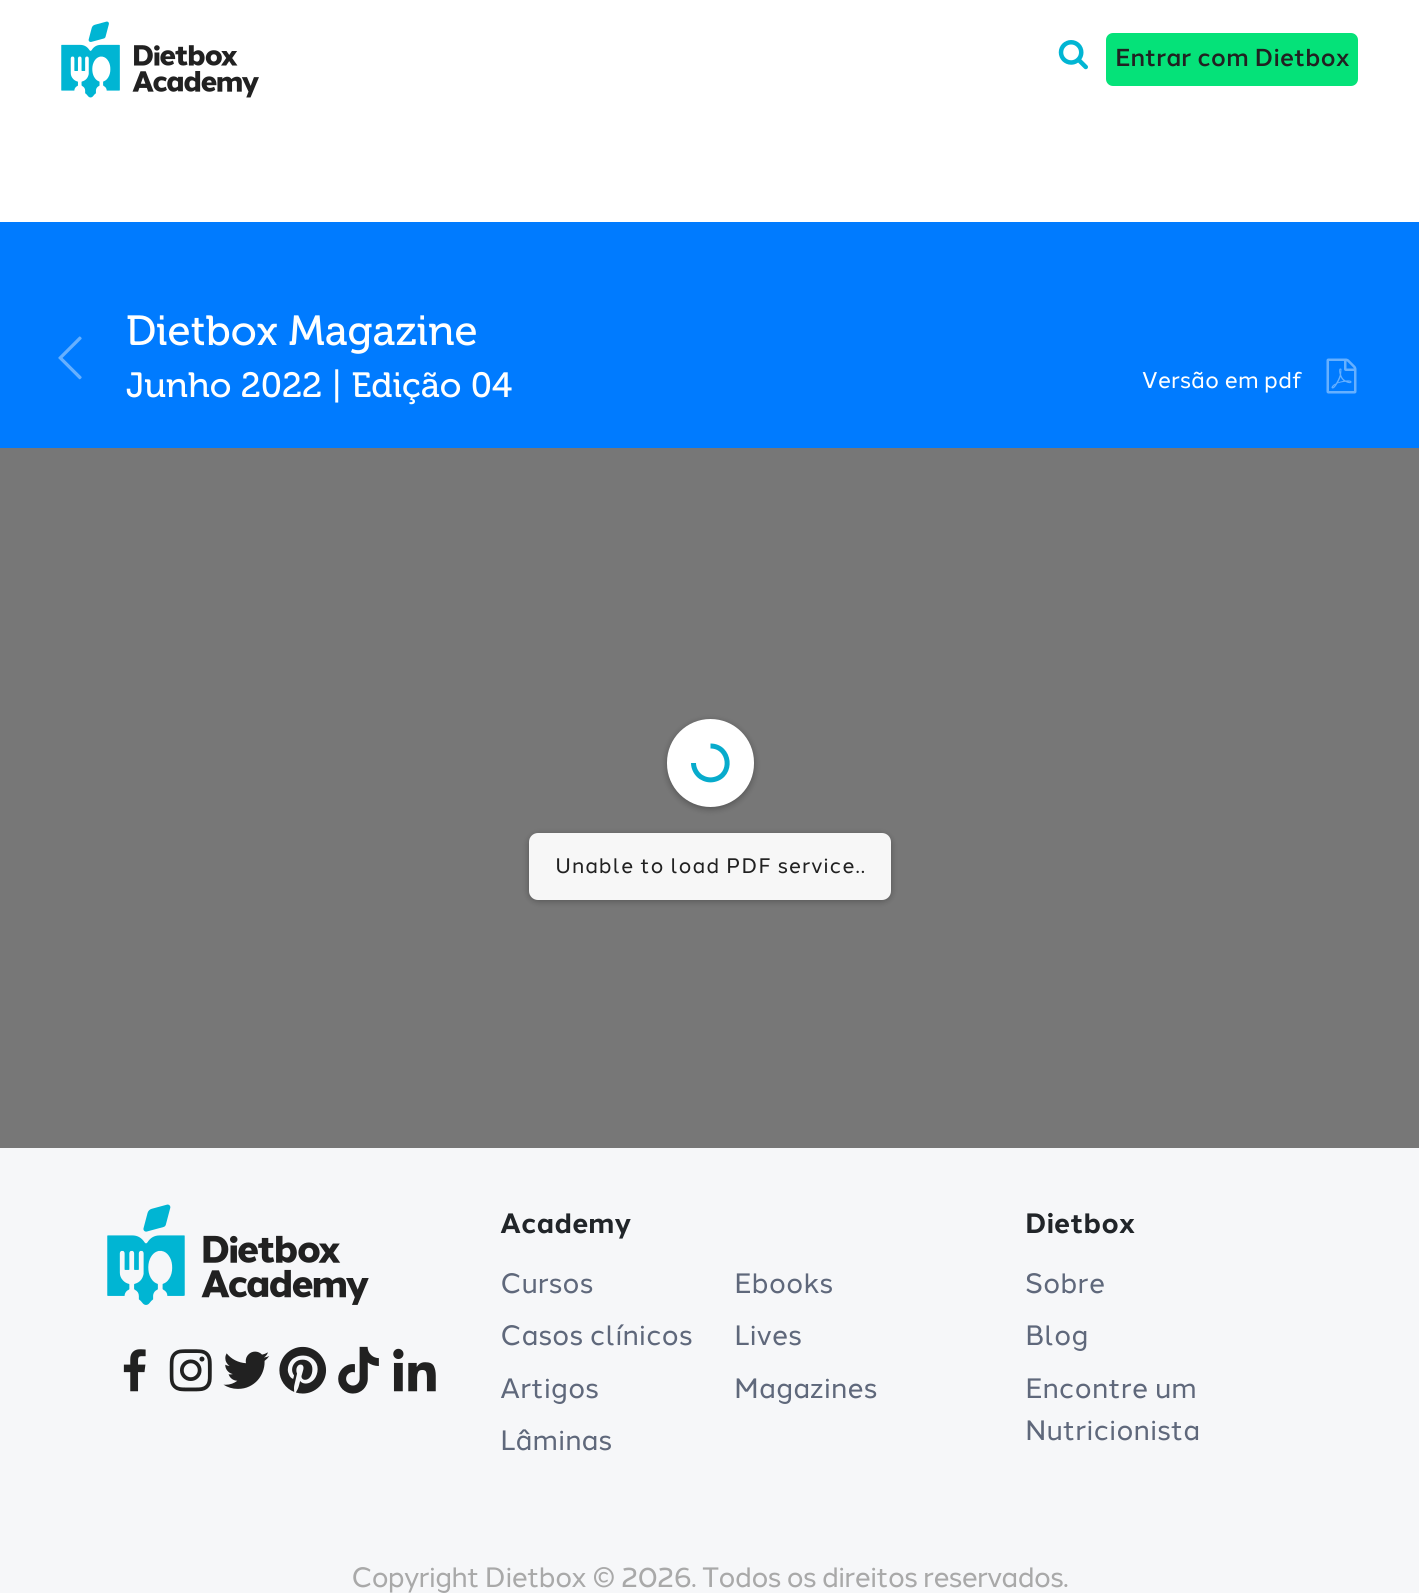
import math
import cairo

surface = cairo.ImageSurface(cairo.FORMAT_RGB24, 1419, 1593)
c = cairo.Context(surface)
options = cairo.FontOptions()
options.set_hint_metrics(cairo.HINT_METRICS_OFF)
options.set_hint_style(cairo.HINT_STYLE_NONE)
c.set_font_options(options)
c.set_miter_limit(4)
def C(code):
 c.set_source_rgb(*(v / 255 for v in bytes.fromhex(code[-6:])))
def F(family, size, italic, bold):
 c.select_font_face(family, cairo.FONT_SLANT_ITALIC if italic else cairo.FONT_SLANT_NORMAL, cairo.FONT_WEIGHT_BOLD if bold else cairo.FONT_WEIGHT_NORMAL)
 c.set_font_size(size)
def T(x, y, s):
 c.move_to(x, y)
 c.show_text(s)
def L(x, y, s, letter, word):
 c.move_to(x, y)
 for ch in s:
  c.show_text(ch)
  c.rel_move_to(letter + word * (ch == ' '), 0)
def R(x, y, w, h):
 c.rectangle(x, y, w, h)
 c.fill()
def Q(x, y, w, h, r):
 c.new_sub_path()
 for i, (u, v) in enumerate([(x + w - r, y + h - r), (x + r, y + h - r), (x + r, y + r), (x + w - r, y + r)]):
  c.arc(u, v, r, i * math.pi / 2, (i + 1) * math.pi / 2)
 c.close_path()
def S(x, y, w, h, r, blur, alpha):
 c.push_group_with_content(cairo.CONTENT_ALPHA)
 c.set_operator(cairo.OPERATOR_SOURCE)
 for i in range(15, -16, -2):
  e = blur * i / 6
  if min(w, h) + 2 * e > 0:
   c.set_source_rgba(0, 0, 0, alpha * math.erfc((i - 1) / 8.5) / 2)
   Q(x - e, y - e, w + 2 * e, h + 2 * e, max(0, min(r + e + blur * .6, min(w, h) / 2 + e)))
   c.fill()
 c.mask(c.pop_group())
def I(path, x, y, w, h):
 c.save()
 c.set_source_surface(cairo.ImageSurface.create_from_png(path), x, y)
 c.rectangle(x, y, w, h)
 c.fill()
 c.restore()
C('ffffff')
c.paint()
I('1.png',61,21,198,77)
I('2.png',1058,40,30,30)
C('05e279')
Q(1106,33,252,53,7)
c.fill()
F('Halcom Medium',24.5,0,0)
C('212121')
T(1115,66,'Entrar com Dietbox')
C('007bff')
R(0,222,1419,226)
I('3.png',58,336,24,44)
F('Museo',42,0,0)
C('ffffff')
T(126,345,'Dietbox Magazine')
F('Museo',35,0,0)
T(126,397,'Junho 2022 | Edição 04')
F('Halcom',22.75,0,0)
T(1142,388,'Versão em pdf')
I('4.png',1326,358,31,36)
C('777777')
R(0,448,1419,700)
C('000000')
S(667,721,87,88,43.5,3.5,.3)
C('ffffff')
Q(667,719,87,88,43.5)
c.fill()
c.new_path()
c.move_to(710.5,746)
c.curve_to(730.5,746,733.5,775.5,714,779.5)
c.curve_to(709.5,780.5,705,779.5,701,777)
c.curve_to(696.5,774,693.5,768.5,693.5,763)
C('07abcc')
c.set_line_width(5)
c.stroke()
C('000000')
S(529,835,362,66,9,3.5,.3)
C('f7f7f7')
Q(529,833,362,67,9)
c.fill()
F('Halcom',21,0,0)
C('212121')
L(555,873,'Unable to load PDF service..',.9,0)
C('f6f7f9')
R(0,1148,1419,445)
I('5.png',107,1204,262,101)
I('6.png',123,1349,23,43)
I('7.png',169,1349,43,43)
I('8.png',223,1351,47,38)
I('9.png',279,1346,48,48)
I('10.png',338,1346,41,48)
I('11.png',393,1348,43,44)
F('Halcom',28,0,1)
C('212529')
T(500,1233,'Academy')
F('Halcom',28,0,0)
C('5f687b')
T(500,1293,'Cursos')
T(734,1293,'Ebooks')
T(500,1345,'Casos clínicos')
T(734,1345,'Lives')
T(500,1398,'Artigos')
T(734,1398,'Magazines')
T(500,1450,'Lâminas')
F('Halcom',28,0,1)
C('212529')
T(1025,1233,'Dietbox')
F('Halcom',28,0,0)
C('5f687b')
T(1025,1293,'Sobre')
T(1025,1345,'Blog')
T(1025,1398,'Encontre um')
T(1025,1440,'Nutricionista')
C('a9a9a9')
L(351,1587,'Copyright Dietbox © 2026. Todos os direitos reservados.',-.88,0)
surface.write_to_png('o.png')
